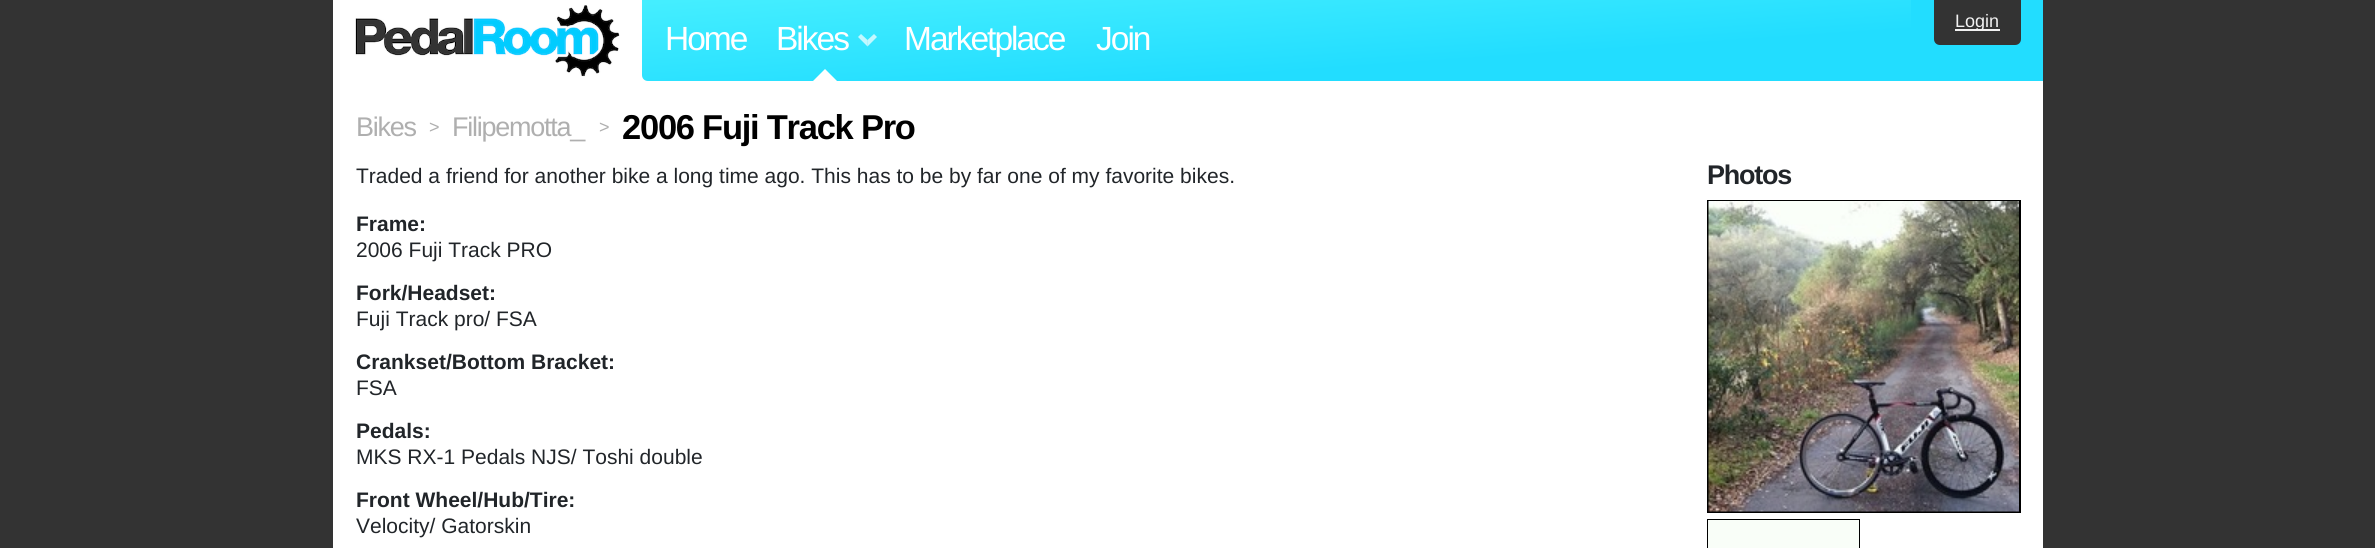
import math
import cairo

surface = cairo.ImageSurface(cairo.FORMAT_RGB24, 2375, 548)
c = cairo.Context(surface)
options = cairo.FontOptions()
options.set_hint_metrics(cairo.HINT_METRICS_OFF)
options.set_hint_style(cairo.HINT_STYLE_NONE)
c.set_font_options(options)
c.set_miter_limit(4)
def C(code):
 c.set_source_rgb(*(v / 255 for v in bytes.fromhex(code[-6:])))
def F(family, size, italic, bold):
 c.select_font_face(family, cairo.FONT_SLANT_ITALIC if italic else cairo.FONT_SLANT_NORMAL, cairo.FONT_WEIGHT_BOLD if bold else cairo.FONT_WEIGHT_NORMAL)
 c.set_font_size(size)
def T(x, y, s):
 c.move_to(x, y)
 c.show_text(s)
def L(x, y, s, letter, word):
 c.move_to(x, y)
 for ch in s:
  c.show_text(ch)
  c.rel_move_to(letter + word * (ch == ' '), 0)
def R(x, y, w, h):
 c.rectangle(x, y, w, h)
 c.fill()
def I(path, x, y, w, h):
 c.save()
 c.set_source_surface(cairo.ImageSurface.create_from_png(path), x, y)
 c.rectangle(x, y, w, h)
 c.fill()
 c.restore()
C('333333')
c.paint()
C('ffffff')
R(333,0,1710,548)
I('1.png',355,5,265,72)
C('22ddff')
R(1911,0,132,81)
C('333333')
c.new_path()
c.move_to(1934,0)
c.line_to(2021,0)
c.line_to(2021,39)
c.curve_to(2021,42.5,2018.5,45,2015,45)
c.line_to(1940,45)
c.curve_to(1936.5,45,1934,42.5,1934,39)
c.close_path()
c.fill()
C('f2f2f2')
R(1955,29,45,2)
F('Liberation Sans',18,0,0)
T(1955,27,'Login')
gradient = cairo.LinearGradient(1271,-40,1282,121)
gradient.add_color_stop_rgba(0,0.267,0.933,1,1)
gradient.add_color_stop_rgba(.7,0.133,0.867,1,1)
c.set_source(gradient)
c.new_path()
c.move_to(642,0)
c.line_to(1911,0)
c.line_to(1911,81)
c.line_to(648,81)
c.curve_to(644.5,81,642,78.5,642,75)
c.close_path()
c.fill()
F('Liberation Sans',33.5,0,0)
C('ffffff')
L(665,50,'Home',-2,0)
L(776,50,'Bikes',-2,0)
c.set_source_rgba(1,1,1,0.7)
c.new_path()
c.move_to(877,37)
c.line_to(867.5,46.5)
c.line_to(867.5,40)
c.line_to(874,34)
c.close_path()
c.fill()
c.new_path()
c.move_to(867.5,46.5)
c.line_to(858,37)
c.line_to(861,34)
c.line_to(867.5,40)
c.close_path()
c.fill()
C('ffffff')
c.new_path()
c.move_to(837,81)
c.line_to(813,81)
c.line_to(825,69)
c.close_path()
c.fill()
L(904,50,'Marketplace',-2,0)
L(1096,50,'Join',-2,0)
F('Liberation Sans',27,0,0)
C('afafaf')
L(356,136,'Bikes',-1.25,0)
F('Liberation Sans',18,0,0)
L(429,133,'>',-1.25,0)
F('Liberation Sans',27,0,0)
L(452,136,'Filipemotta_',-1.25,0)
F('Liberation Sans',18,0,0)
L(599,133,'>',-1.25,0)
F('Liberation Sans',34.5,0,1)
C('000000')
L(622,139,'2006 Fuji Track Pro',-1.25,0)
F('Liberation Sans',21,0,0)
C('212529')
T(356,183,'Traded a friend for another bike a long time ago. This has to be by far one of my favorite bikes.')
F('Liberation Sans',21,0,1)
T(356,231,'Frame:')
F('Liberation Sans',21,0,0)
T(356,257,'2006 Fuji Track PRO')
F('Liberation Sans',21,0,1)
T(356,300,'Fork/Headset:')
F('Liberation Sans',21,0,0)
T(356,326,'Fuji Track pro/ FSA')
F('Liberation Sans',21,0,1)
T(356,369,'Crankset/Bottom Bracket:')
F('Liberation Sans',21,0,0)
T(356,395,'FSA')
F('Liberation Sans',21,0,1)
T(356,438,'Pedals:')
F('Liberation Sans',21,0,0)
T(356,464,'MKS RX-1 Pedals NJS/ Toshi double')
F('Liberation Sans',21,0,1)
T(356,507,'Front Wheel/Hub/Tire:')
F('Liberation Sans',21,0,0)
T(356,533,'Velocity/ Gatorskin')
F('Liberation Sans',27,0,1)
L(1707,184,'Photos',-1.25,0)
c.rectangle(1708,201,312,311)
C('000000')
c.stroke()
I('2.png',1708,201,311,311)
c.rectangle(1708,520,151,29)
c.stroke()
C('f9fef8')
R(1708,520,151,28)
surface.write_to_png('o.png')
